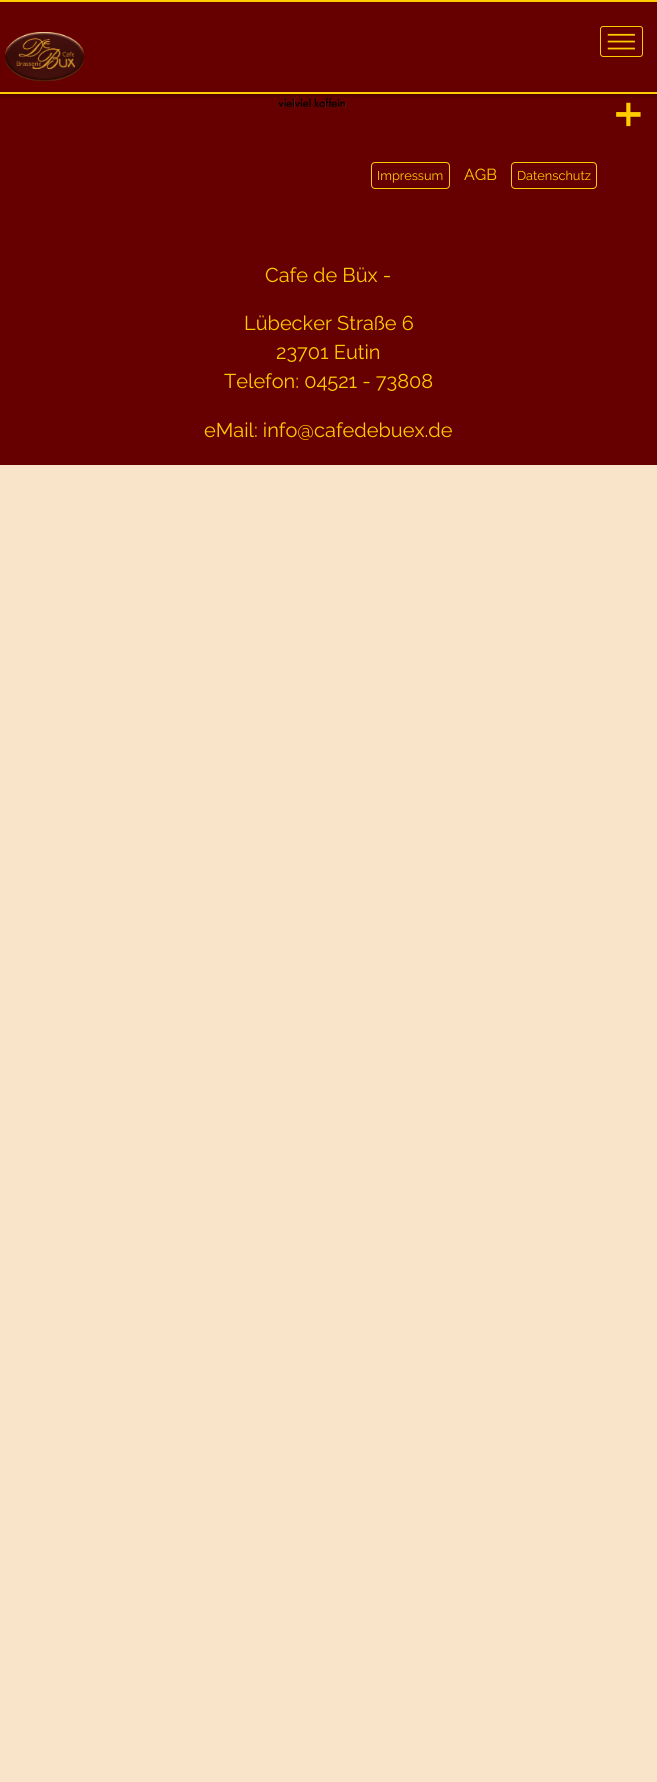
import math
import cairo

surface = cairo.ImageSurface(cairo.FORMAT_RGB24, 657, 1782)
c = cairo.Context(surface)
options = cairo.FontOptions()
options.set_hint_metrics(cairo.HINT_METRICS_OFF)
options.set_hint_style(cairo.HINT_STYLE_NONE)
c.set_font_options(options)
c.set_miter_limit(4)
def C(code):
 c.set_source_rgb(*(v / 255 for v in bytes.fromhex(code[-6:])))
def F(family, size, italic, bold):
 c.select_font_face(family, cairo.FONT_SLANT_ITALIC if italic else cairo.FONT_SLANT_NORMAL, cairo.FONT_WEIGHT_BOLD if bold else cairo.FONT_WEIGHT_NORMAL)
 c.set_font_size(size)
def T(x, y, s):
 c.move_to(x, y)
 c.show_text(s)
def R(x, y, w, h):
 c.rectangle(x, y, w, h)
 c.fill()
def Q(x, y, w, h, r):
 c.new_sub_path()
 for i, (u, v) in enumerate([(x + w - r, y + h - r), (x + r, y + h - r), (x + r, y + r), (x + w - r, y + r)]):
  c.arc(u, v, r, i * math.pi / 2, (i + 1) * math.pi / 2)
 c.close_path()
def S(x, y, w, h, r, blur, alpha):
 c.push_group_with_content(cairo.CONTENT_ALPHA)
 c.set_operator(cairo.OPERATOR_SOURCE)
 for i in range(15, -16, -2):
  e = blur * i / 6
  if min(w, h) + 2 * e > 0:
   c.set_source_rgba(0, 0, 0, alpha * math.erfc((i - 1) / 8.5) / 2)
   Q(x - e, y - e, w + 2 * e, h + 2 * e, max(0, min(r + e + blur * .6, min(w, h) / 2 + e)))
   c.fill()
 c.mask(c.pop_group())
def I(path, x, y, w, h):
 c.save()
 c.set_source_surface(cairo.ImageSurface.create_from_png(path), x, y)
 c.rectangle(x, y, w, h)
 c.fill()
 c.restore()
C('f9e3c9')
c.paint()
C('660000')
R(0,94,657,371)
I('2.png',278,97,68,11)
C('000000')
S(-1,1,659,96,0,1,.2)
C('660000')
R(0,2,657,90)
C('ffcc00')
R(0,0,657,2)
R(0,92,657,2)
I('1.png',5,32,79,49)
c.new_path()
c.move_to(600.5,54)
c.line_to(600.5,29)
c.curve_to(600.5,27.5,602,26.5,603,26.5)
c.line_to(640,26.5)
c.curve_to(641.5,26.5,642.5,27.5,642.5,29)
c.line_to(642.5,54)
c.curve_to(642.5,55,641.5,56.5,640,56.5)
c.line_to(603,56.5)
c.curve_to(602,56.5,600.5,55,600.5,54)
c.close_path()
c.set_line_width(1)
c.stroke()
F('Raleway Thin',30,0,0)
c.save()
c.translate(631,52)
c.rotate(-90 * math.pi / 180)
T(0,0,'|||')
c.restore()
F('Raleway Thin',75,0,0)
c.save()
c.translate(655,130)
c.rotate(-90 * math.pi / 180)
T(0,0,'+')
c.restore()
Q(371.5,162.5,78,26,3.5)
c.stroke()
F('Raleway Thin',12.75,0,0)
T(377,180,'Impressum')
F('Raleway Thin',16,0,0)
T(464,180,'AGB')
Q(511.5,162.5,85,26,3.5)
c.stroke()
F('Raleway Thin',12.75,0,0)
T(517,180,'Datenschutz')
F('Raleway Thin',20,0,0)
T(265,282,'Cafe de Büx -')
T(244,330,'Lübecker Straße 6')
T(276,359,'23701 Eutin')
T(224,388,'Telefon: 04521 - 73808')
T(204,437,'eMail: info@cafedebuex.de')
surface.write_to_png('o.png')
